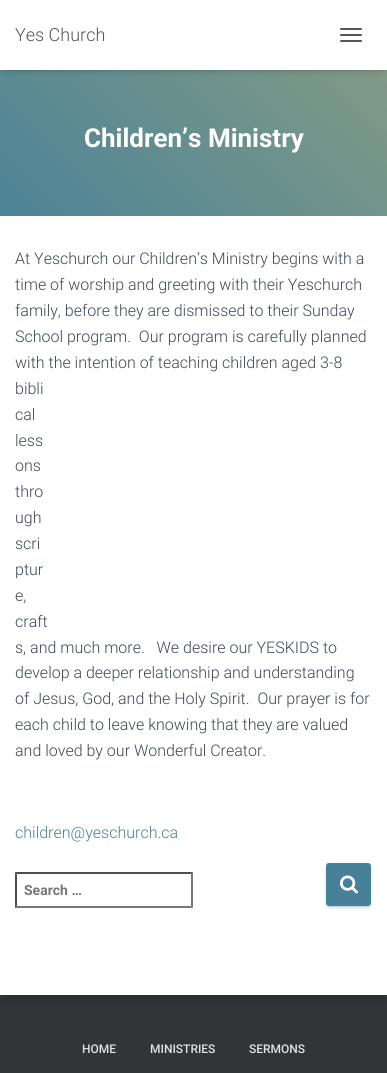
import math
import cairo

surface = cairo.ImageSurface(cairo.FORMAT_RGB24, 387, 1073)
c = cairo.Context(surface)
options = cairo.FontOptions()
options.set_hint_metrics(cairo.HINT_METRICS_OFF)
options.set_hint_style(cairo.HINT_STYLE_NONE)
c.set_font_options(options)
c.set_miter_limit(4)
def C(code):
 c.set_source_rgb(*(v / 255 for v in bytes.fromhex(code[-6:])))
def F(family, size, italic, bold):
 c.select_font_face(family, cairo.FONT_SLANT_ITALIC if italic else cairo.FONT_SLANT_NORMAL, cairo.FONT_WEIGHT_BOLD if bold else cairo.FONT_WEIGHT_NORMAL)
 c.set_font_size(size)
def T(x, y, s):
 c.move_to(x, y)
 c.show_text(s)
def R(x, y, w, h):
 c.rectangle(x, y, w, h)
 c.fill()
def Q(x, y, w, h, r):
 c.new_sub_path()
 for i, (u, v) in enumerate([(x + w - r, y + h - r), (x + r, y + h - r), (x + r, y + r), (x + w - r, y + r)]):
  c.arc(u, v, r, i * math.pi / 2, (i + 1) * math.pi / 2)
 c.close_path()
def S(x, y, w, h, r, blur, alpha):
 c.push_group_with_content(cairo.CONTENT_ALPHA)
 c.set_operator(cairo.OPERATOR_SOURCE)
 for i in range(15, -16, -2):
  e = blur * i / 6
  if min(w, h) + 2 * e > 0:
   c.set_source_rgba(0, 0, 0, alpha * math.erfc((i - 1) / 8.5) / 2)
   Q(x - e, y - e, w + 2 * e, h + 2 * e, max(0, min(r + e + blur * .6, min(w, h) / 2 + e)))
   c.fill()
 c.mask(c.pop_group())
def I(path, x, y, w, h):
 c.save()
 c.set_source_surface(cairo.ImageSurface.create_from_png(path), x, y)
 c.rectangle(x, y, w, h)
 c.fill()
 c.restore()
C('323437')
c.paint()
gradient = cairo.LinearGradient(28,304,359,-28)
gradient.add_color_stop_rgba(0,0.275,0.506,0.6,1)
gradient.add_color_stop_rgba(1,0.533,0.616,0.518,1)
c.set_source(gradient)
R(0,70,387,146)
C('000000')
S(2,6,383,66,0,2.5,.1)
S(6,7,375,58,0,5,.42)
C('ffffff')
R(0,0,387,70)
F('Roboto Light',18,0,0)
C('555555')
T(15,41,'Yes Church')
Q(340,28,22,2,1)
c.fill()
Q(340,34,22,2,1)
c.fill()
Q(340,40,22,2,1)
c.fill()
F('Roboto',26,0,1)
C('ffffff')
T(84,147,'Children’s Ministry')
C('000000')
S(5,229,377,769,0,5,.2)
C('ffffff')
R(0,216,387,779)
F('Roboto Light',16,0,0)
C('3c4858')
T(15,264,'At Yeschurch our Children’s Ministry begins with a')
T(15,290,'time of worship and greeting with their Yeschurch')
T(15,316,'family, before they are dismissed to their Sunday')
T(15,342,'School program.  Our program is carefully planned')
T(15,368,'with the intention of teaching children aged 3-8')
T(15,394,'bibli')
T(15,420,'cal')
T(15,446,'less')
T(15,471,'ons')
T(15,497,'thro')
T(15,523,'ugh')
T(15,549,'scri')
T(15,575,'ptur')
T(15,601,'e,')
T(15,627,'craft')
T(15,653,'s, and much more.   We desire our YESKIDS to')
T(15,678,'develop a deeper relationship and understanding')
T(15,704,'of Jesus, God, and the Holy Spirit.  Our prayer is for')
T(15,730,'each child to leave knowing that they are valued')
T(15,756,'and loved by our Wonderful Creator.')
C('468199')
T(15,838,'children@yeschurch.ca')
C('4f4f4f')
c.new_path()
c.move_to(15,872)
c.line_to(193,872)
c.line_to(191,874)
c.line_to(17,874)
c.close_path()
c.fill()
C('767676')
c.new_path()
c.move_to(193,872)
c.line_to(193,908)
c.line_to(191,906)
c.line_to(191,874)
c.close_path()
c.fill()
c.new_path()
c.move_to(193,908)
c.line_to(15,908)
c.line_to(17,906)
c.line_to(191,906)
c.close_path()
c.fill()
C('4f4f4f')
c.new_path()
c.move_to(15,908)
c.line_to(15,872)
c.line_to(17,874)
c.line_to(17,906)
c.close_path()
c.fill()
F('Roboto',14,0,1)
C('757575')
T(24,895,'Search …')
C('468199')
S(326,864,45,43,3,2.5,.12)
S(328,868,41,39,1,.5,.2)
S(326,865,45,43,3,1,.14)
C('468199')
Q(326,863,45,43,3)
c.fill()
I('1.png',340,875,18,19)
F('Roboto Medium',12,0,0)
C('e2e3e3')
T(82,1053,'HOME')
T(150,1053,'MINISTRIES')
T(249,1053,'SERMONS')
surface.write_to_png('o.png')
